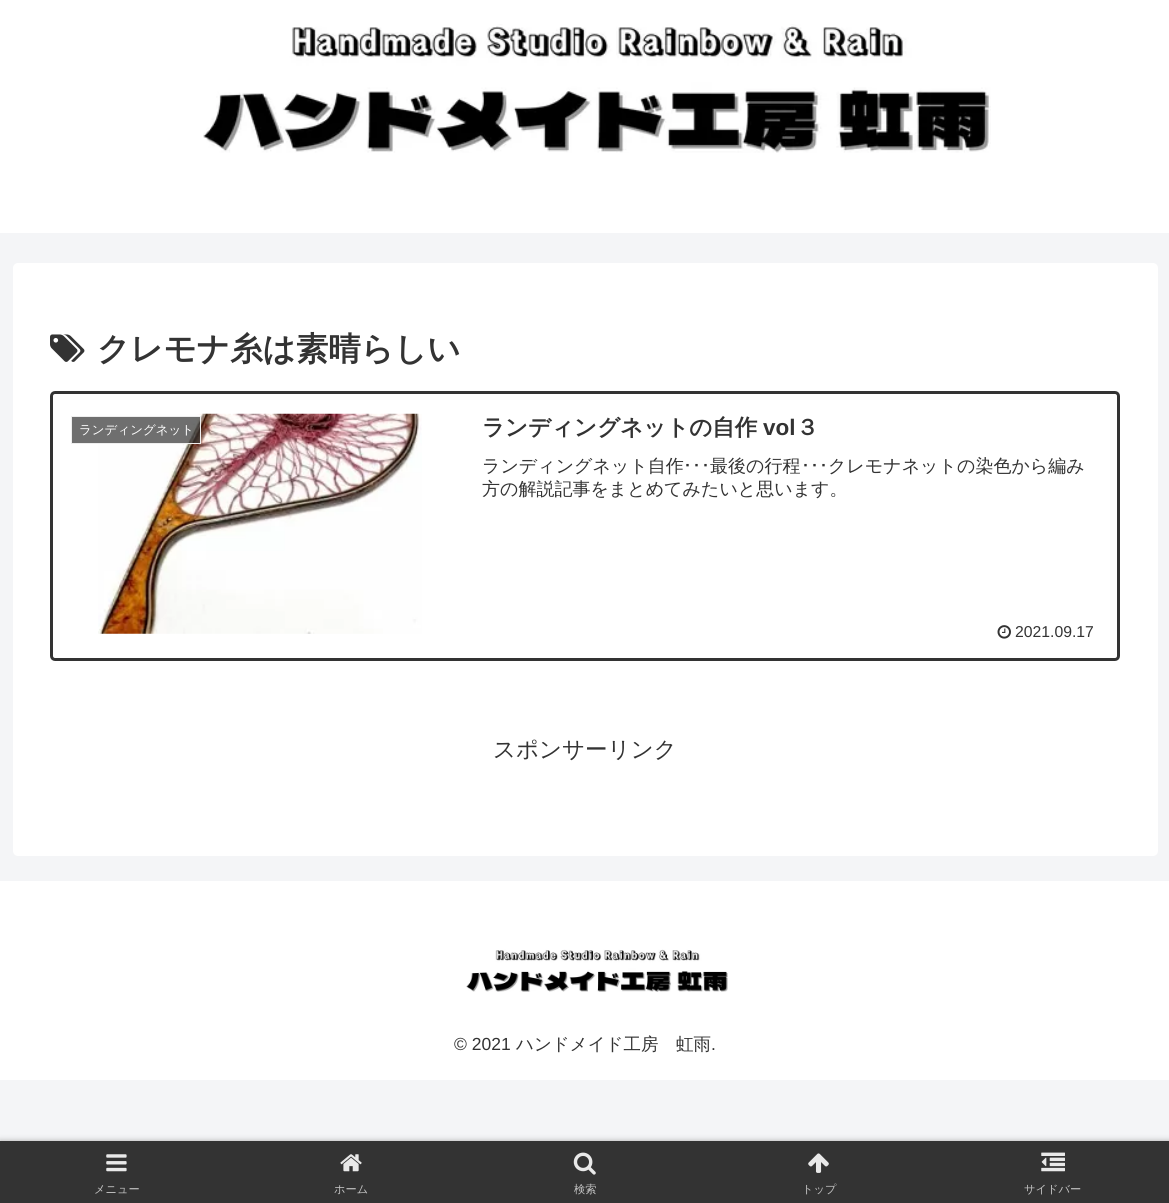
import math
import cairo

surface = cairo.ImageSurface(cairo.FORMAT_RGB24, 1169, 1203)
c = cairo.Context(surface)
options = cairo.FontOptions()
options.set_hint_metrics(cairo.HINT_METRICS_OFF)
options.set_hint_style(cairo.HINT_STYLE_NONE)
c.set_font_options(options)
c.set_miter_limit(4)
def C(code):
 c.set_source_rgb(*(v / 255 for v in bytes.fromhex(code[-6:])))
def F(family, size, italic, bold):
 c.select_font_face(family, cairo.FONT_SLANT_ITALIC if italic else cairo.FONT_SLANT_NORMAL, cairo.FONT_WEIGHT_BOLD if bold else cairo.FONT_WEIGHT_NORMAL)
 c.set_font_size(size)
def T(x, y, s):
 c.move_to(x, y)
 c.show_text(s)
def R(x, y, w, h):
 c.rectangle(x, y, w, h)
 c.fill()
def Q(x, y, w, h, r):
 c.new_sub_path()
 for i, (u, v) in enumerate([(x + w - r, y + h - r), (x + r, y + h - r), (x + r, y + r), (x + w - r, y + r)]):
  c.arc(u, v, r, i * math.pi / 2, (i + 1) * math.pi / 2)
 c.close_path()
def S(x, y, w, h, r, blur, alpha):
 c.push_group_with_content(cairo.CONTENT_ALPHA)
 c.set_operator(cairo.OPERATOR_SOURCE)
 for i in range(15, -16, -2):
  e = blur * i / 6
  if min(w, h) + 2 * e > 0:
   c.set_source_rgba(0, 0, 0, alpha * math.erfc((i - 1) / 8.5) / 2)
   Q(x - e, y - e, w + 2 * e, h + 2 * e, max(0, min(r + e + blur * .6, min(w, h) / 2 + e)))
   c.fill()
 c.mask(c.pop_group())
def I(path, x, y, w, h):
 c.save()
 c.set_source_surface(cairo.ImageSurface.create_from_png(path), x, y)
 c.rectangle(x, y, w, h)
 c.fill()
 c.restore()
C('f4f5f7')
c.paint()
C('ffffff')
R(0,0,1169,233)
I('1.png',203,24,788,129)
Q(13,263,1145,593,5)
c.fill()
I('2.png',50,334,35,28)
F('WenQuanYi Zen Hei',32.5,0,1)
C('333333')
T(97,360,'クレモナ糸は素晴らしい')
Q(51.5,392.5,1067,267,3.5)
c.set_line_width(3)
c.stroke()
I('3.png',98,413,324,221)
c.set_source_rgba(0.2,0.2,0.2,0.7)
c.rectangle(71.5,416.5,129,27)
c.fill_preserve()
C('eeeeee')
c.set_line_width(1)
c.stroke()
F('WenQuanYi Zen Hei Medium',12.5,0,0)
C('ffffff')
T(79,434,'ランディングネット')
F('WenQuanYi Zen Hei',22.5,0,1)
C('333333')
T(482,435,'ランディングネットの自作')
F('Liberation Sans',22.5,0,1)
T(763,435,'vol')
F('WenQuanYi Zen Hei',22.5,0,1)
T(796,435,'３')
F('WenQuanYi Zen Hei Medium',18,0,0)
T(482,472,'ランディングネット自作')
F('IPAPGothic',18,0,0)
T(683,472,'･･･')
F('WenQuanYi Zen Hei Medium',18,0,0)
T(710,472,'最後の行程')
F('IPAPGothic',18,0,0)
T(801,472,'･･･')
F('WenQuanYi Zen Hei Medium',18,0,0)
T(828,472,'クレモナネットの染色から編み')
T(482,495,'方の解説記事をまとめてみたいと思います。')
I('4.png',997,625,14,14)
F('Liberation Sans',15.75,0,0)
T(1015,637,'2021.09.17')
F('WenQuanYi Zen Hei Medium',22.5,0,0)
T(493,757,'スポンサーリンク')
C('ffffff')
R(0,881,1169,199)
I('5.png',466,949,262,43)
F('Liberation Sans',17.5,0,0)
C('333333')
T(454,1050,'© 2021')
F('WenQuanYi Zen Hei Medium',17.5,0,0)
T(516,1050,'ハンドメイド工房　虹雨')
F('Liberation Sans',17.5,0,0)
T(711,1050,'.')
C('a9a9a9')
S(0,1141,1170,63,0,3,1)
C('333333')
R(0,1141,1169,62)
I('6.png',106,1154,21,18)
F('WenQuanYi Zen Hei Medium',11.25,0,0)
C('c5c5c5')
T(94,1193,'メニュー')
I('7.png',340,1154,22,18)
T(334,1193,'ホーム')
I('8.png',573,1152,23,23)
T(574,1193,'検索')
I('9.png',808,1153,21,20)
T(802,1193,'トップ')
I('10.png',1041,1152,24,20)
T(1024,1193,'サイドバー')
surface.write_to_png('o.png')
